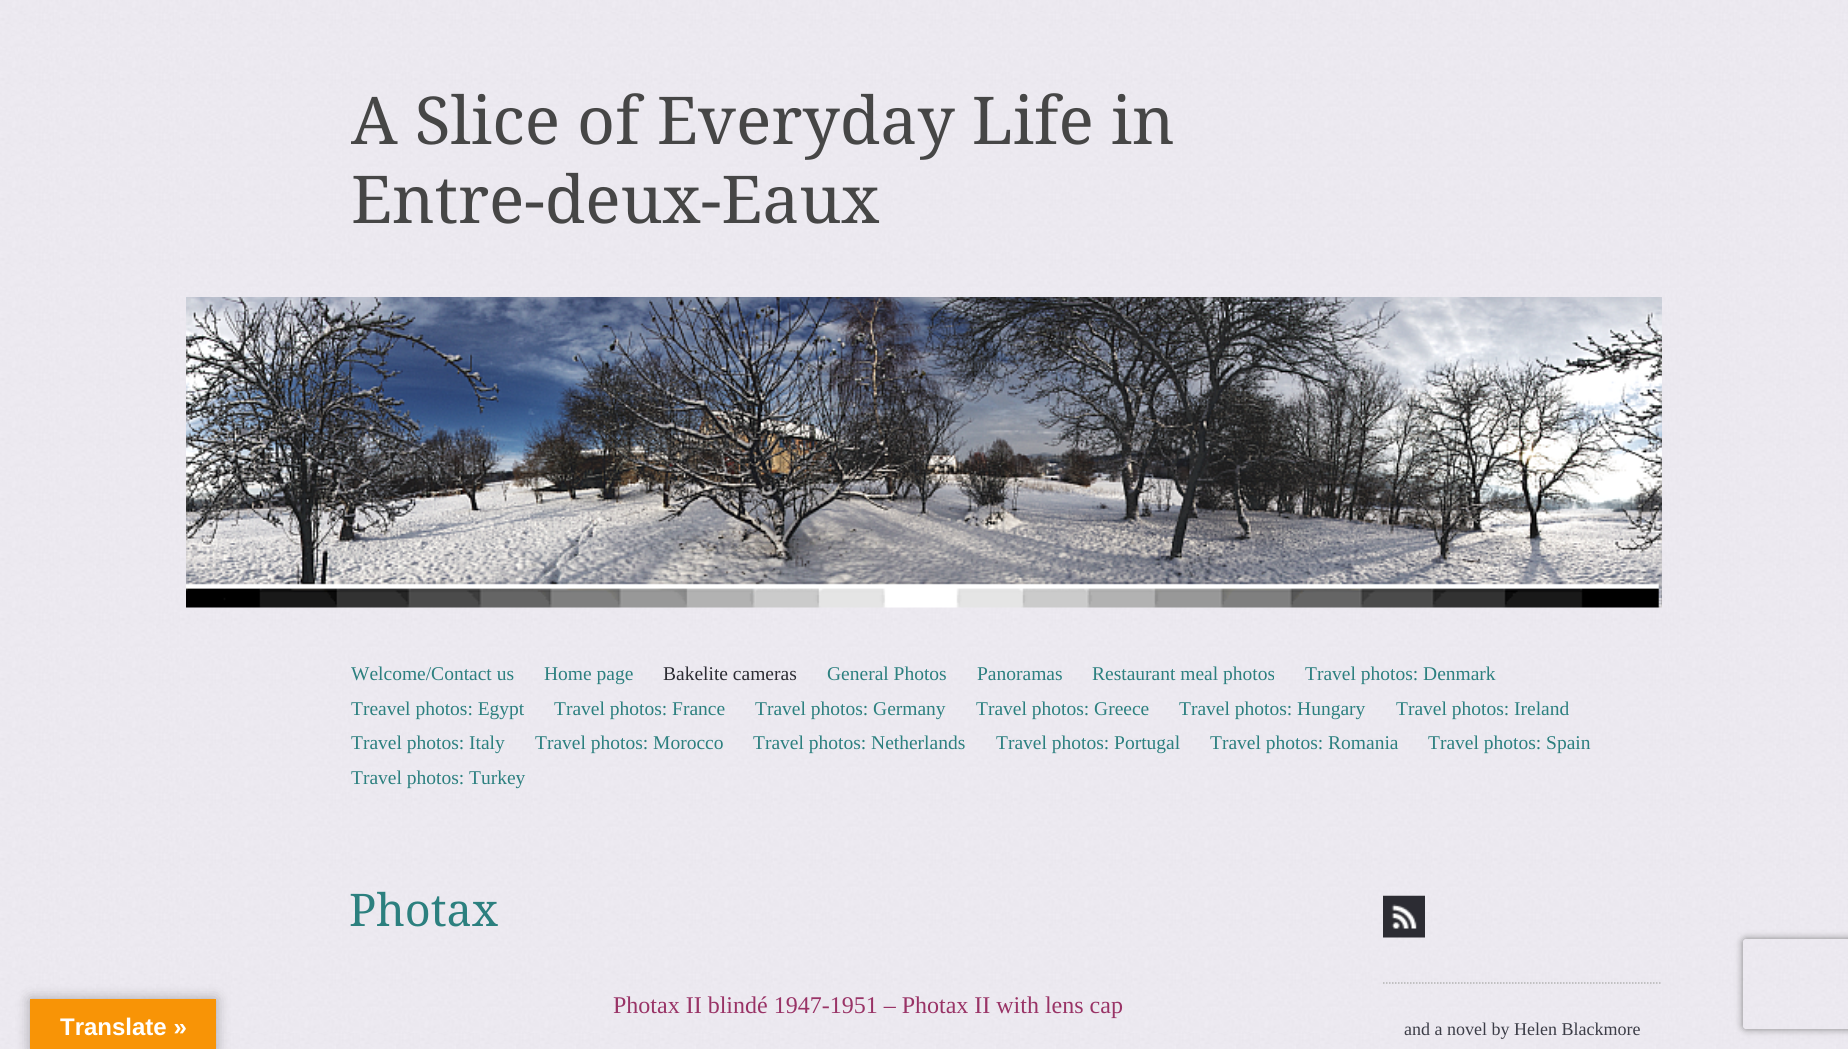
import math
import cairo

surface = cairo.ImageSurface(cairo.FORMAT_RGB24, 1848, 1049)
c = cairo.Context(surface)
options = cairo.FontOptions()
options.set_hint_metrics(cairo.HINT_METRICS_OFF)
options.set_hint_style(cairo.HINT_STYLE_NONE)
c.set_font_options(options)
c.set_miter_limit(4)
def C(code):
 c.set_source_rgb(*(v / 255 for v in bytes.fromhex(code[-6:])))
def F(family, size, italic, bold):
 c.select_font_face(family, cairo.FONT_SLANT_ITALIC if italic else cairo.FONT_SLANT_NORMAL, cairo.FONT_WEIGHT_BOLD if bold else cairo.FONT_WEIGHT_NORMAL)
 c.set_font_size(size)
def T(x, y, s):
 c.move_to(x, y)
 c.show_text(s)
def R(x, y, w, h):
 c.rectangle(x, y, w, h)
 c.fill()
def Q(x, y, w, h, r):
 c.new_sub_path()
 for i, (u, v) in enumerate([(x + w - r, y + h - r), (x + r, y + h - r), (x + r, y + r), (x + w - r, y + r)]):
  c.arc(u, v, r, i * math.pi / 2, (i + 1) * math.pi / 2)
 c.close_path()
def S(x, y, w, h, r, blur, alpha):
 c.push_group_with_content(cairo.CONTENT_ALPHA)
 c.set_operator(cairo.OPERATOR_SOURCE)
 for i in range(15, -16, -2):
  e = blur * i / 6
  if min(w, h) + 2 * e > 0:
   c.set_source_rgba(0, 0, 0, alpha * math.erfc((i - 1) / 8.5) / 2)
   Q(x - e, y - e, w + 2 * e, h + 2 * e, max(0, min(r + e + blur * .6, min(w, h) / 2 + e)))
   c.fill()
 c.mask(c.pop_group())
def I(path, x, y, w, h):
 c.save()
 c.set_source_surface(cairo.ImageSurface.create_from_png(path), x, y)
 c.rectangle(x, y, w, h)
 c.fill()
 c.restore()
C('ffffff')
c.paint()
I('1.png',0,0,1848,1049)
I('2.png',194,12,1474,1021)
C('000000')
S(30,999,186,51,0,7,.3)
C('f89406')
R(30,999,186,50)
F('Liberation Sans',24,0,1)
C('ffffff')
T(60,1035,'Translate »')
F('Droid Serif',66,0,0)
C('464646')
T(351,144,'A Slice of Everyday Life in')
T(351,223,'Entre-deux-Eaux')
I('3.png',186,297,1476,311)
F('Liberation Serif',19.5,0,0)
C('2c807f')
T(351,680,'Welcome/Contact us')
T(544,680,'Home page')
C('2c2c33')
T(663,680,'Bakelite cameras')
C('2c807f')
T(827,680,'General Photos')
T(977,680,'Panoramas')
T(1092,680,'Restaurant meal photos')
T(1305,680,'Travel photos: Denmark')
T(351,715,'Treavel photos: Egypt')
T(554,715,'Travel photos: France')
T(755,715,'Travel photos: Germany')
T(976,715,'Travel photos: Greece')
T(1179,715,'Travel photos: Hungary')
T(1396,715,'Travel photos: Ireland')
T(351,749,'Travel photos: Italy')
T(535,749,'Travel photos: Morocco')
T(753,749,'Travel photos: Netherlands')
T(996,749,'Travel photos: Portugal')
T(1210,749,'Travel photos: Romania')
T(1428,749,'Travel photos: Spain')
T(351,784,'Travel photos: Turkey')
F('Droid Serif',45,0,0)
T(349,926,'Photax')
F('Liberation Serif',24,0,0)
C('993366')
T(613,1013,'Photax II blindé 1947-1951 – Photax II with lens cap')
I('4.png',1383,895,42,43)
c.new_path()
c.move_to(1383,983)
c.line_to(1662,983)
C('b3b3b3')
c.set_line_width(1.5)
c.set_dash([1.5,1.5])
c.stroke()
F('Liberation Serif',18,0,0)
C('3c3d47')
T(1404,1035,'and a novel by Helen Blackmore')
c.save()
c.set_fill_rule(cairo.FILL_RULE_EVEN_ODD)
c.new_path()
c.move_to(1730,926)
c.line_to(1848,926)
c.line_to(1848,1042)
c.line_to(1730,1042)
c.close_path()
c.move_to(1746,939)
c.line_to(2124,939)
c.curve_to(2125.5,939,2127,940.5,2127,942)
c.line_to(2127,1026)
c.curve_to(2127,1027.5,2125.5,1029,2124,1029)
c.line_to(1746,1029)
c.curve_to(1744.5,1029,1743,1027.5,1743,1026)
c.line_to(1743,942)
c.curve_to(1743,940.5,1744.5,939,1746,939)
c.close_path()
c.clip()
C('808080')
S(1743,939,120,90,3,4,1)
c.restore()
surface.write_to_png('o.png')
